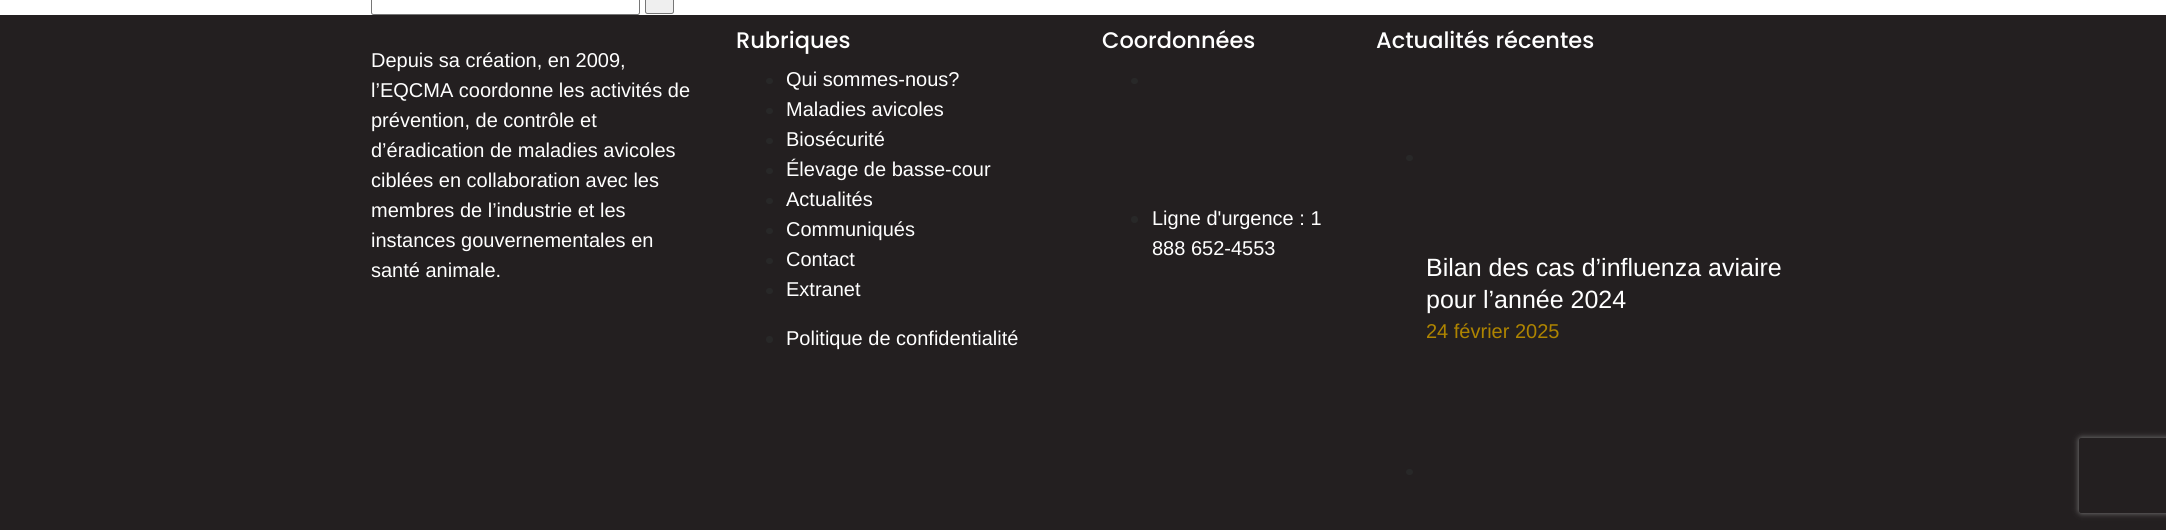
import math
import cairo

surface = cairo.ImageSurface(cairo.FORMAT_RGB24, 2166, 530)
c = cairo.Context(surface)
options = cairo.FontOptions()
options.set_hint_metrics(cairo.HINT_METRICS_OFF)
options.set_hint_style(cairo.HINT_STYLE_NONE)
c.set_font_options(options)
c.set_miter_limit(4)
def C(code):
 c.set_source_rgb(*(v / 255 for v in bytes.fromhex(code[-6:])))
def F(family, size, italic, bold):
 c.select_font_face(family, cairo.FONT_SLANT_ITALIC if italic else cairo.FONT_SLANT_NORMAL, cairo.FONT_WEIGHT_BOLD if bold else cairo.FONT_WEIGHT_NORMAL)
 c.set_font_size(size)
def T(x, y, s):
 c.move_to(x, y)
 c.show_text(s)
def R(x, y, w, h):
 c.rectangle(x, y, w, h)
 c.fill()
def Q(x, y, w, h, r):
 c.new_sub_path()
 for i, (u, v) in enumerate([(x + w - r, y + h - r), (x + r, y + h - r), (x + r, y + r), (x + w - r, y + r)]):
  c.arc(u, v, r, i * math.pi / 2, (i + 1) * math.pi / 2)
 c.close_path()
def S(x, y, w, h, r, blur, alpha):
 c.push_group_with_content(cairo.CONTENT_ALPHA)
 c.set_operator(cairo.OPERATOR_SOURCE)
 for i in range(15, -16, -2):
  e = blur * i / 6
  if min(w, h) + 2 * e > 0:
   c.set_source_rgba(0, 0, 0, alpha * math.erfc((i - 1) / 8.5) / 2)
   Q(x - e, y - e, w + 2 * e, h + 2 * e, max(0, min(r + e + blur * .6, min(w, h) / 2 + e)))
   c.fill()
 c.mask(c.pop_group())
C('ffffff')
c.paint()
Q(371.5,-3.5,268,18,2)
C('767676')
c.set_line_width(1)
c.stroke()
C('efefef')
Q(645.5,-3.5,28,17,2)
c.fill_preserve()
C('767676')
c.stroke()
C('231f20')
R(0,15,2166,515)
F('Liberation Sans',20,0,0)
C('ffffff')
T(371,67,'Depuis sa création, en 2009,')
T(371,97,'l’EQCMA coordonne les activités de')
T(371,127,'prévention, de contrôle et')
T(371,157,'d’éradication de maladies avicoles')
T(371,187,'ciblées en collaboration avec les')
T(371,217,'membres de l’industrie et les')
T(371,247,'instances gouvernementales en')
T(371,277,'santé animale.')
F('Poppins Medium',22.5,0,0)
T(736,48,'Rubriques')
C('282828')
Q(766,78,7,6,3)
c.fill()
F('Liberation Sans',20,0,0)
C('ffffff')
T(786,86,'Qui sommes-nous?')
C('282828')
Q(766,108,7,6,3)
c.fill()
C('ffffff')
T(786,116,'Maladies avicoles')
C('282828')
Q(766,138,7,6,3)
c.fill()
C('ffffff')
T(786,146,'Biosécurité')
C('282828')
Q(766,168,7,6,3)
c.fill()
C('ffffff')
T(786,176,'Élevage de basse-cour')
C('282828')
Q(766,198,7,6,3)
c.fill()
C('ffffff')
T(786,206,'Actualités')
C('282828')
Q(766,228,7,6,3)
c.fill()
C('ffffff')
T(786,236,'Communiqués')
C('282828')
Q(766,258,7,6,3)
c.fill()
C('ffffff')
T(786,266,'Contact')
C('282828')
Q(766,288,7,6,3)
c.fill()
C('ffffff')
T(786,296,'Extranet')
C('282828')
c.new_path()
c.arc(769.5,339.5,3.5,0,2 * math.pi)
c.fill()
C('ffffff')
T(786,345,'Politique de confidentialité')
F('Poppins Medium',22.5,0,0)
T(1102,48,'Coordonnées')
C('282828')
Q(1131,78,7,6,3)
c.fill()
c.arc(1134.5,219.5,3.5,0,2 * math.pi)
c.fill()
F('Liberation Sans',20,0,0)
C('ffffff')
T(1152,225,'Ligne d\'urgence : 1')
T(1152,255,'888 652-4553')
F('Poppins Medium',22.5,0,0)
T(1376,48,'Actualités récentes')
C('282828')
Q(1406,155,7,6,3)
c.fill()
F('Liberation Sans',25,0,0)
C('ffffff')
T(1426,276,'Bilan des cas d’influenza aviaire')
T(1426,308,'pour l’année 2024')
F('Liberation Sans',20,0,0)
C('ae8400')
T(1426,338,'24 février 2025')
C('282828')
Q(1406,469,7,6,3)
c.fill()
c.save()
c.set_fill_rule(cairo.FILL_RULE_EVEN_ODD)
c.new_path()
c.move_to(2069,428)
c.line_to(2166,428)
c.line_to(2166,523)
c.line_to(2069,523)
c.close_path()
c.move_to(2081.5,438)
c.line_to(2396.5,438)
c.curve_to(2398,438,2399,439,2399,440.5)
c.line_to(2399,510.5)
c.curve_to(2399,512,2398,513,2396.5,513)
c.line_to(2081.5,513)
c.curve_to(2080,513,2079,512,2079,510.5)
c.line_to(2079,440.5)
c.curve_to(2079,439,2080,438,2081.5,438)
c.close_path()
c.clip()
C('808080')
S(2079,438,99,75,2.5,3,1)
c.restore()
surface.write_to_png('o.png')
